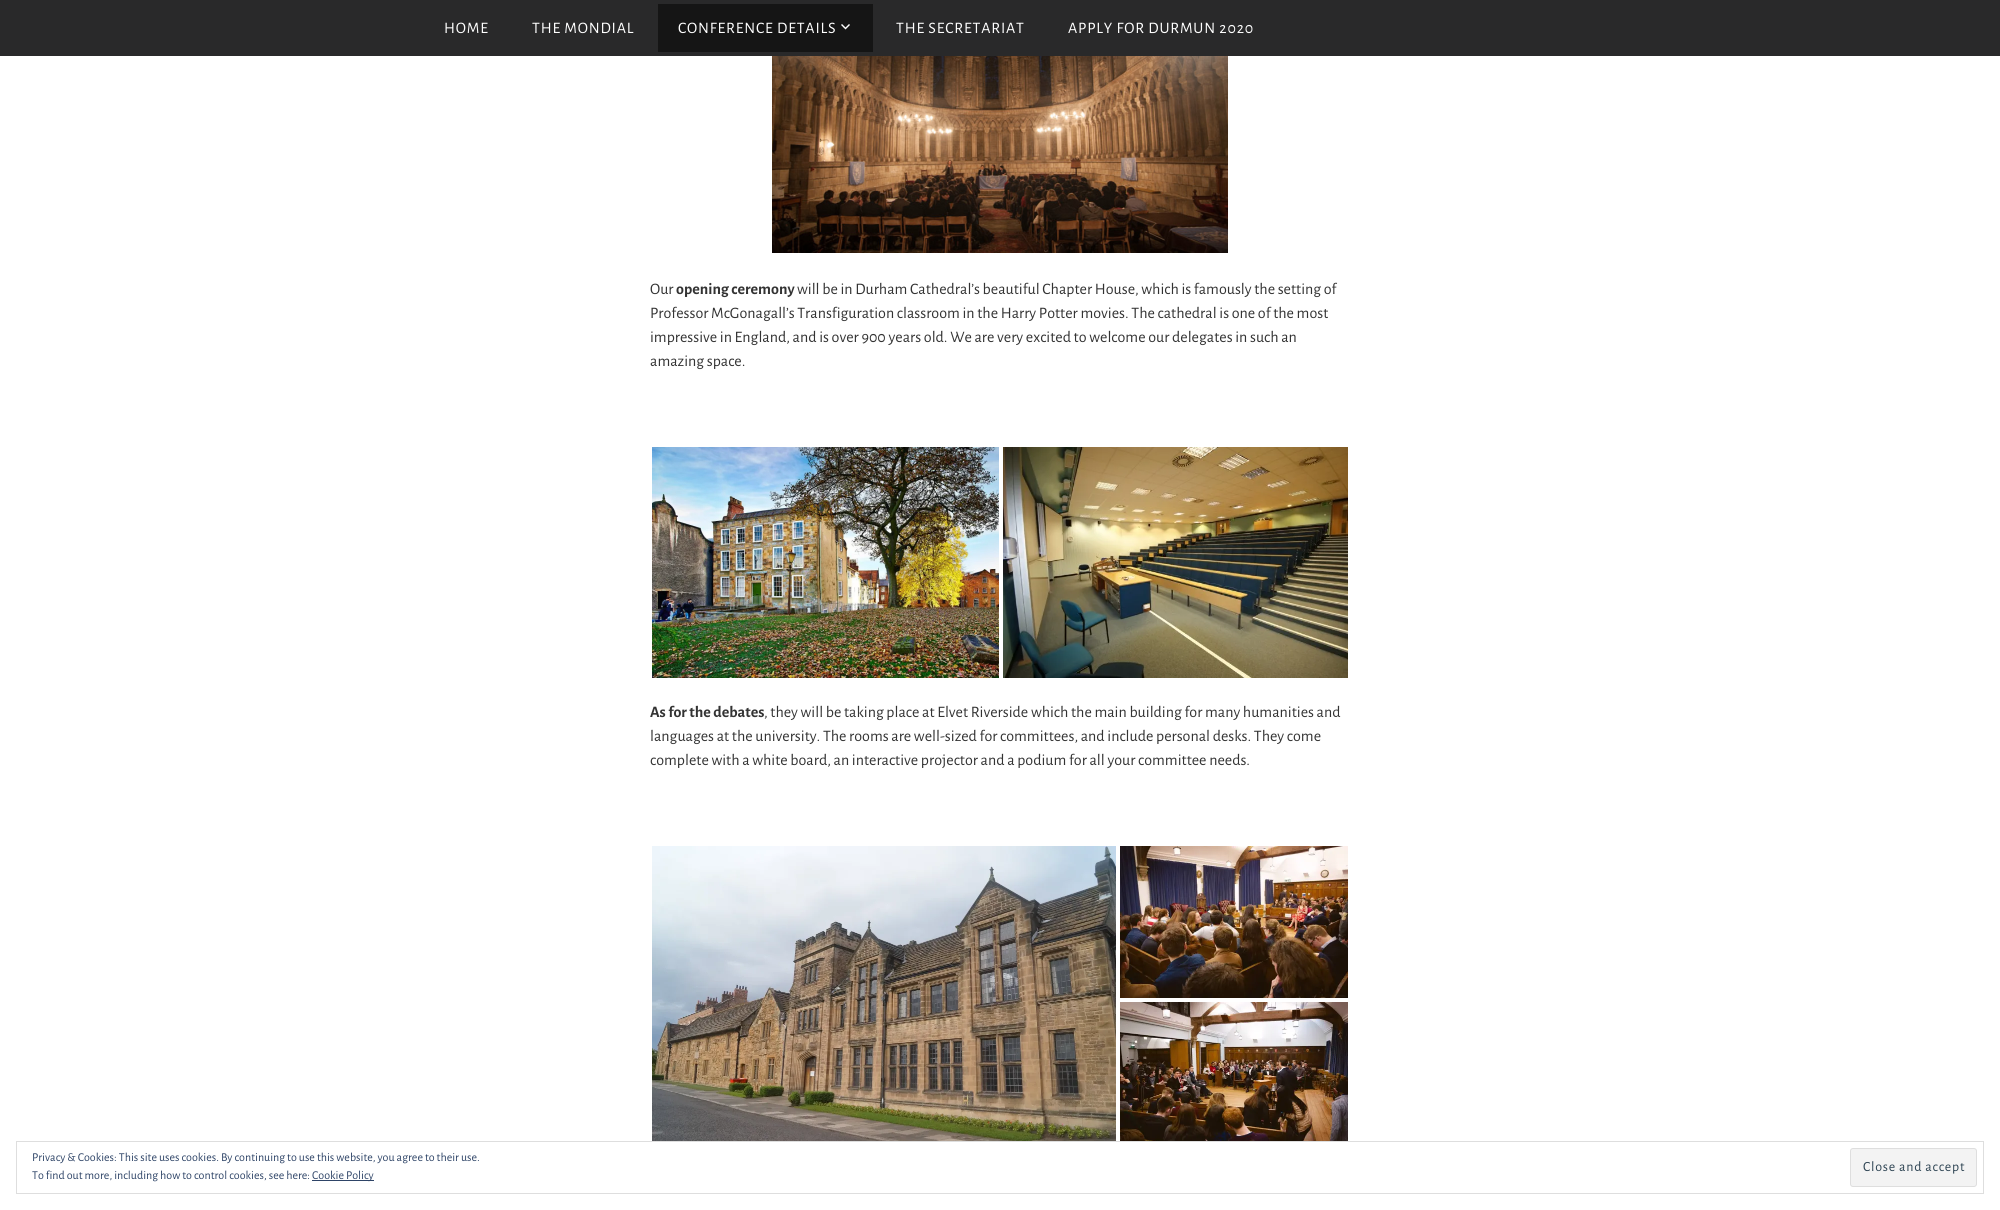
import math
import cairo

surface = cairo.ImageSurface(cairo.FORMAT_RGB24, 2000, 1210)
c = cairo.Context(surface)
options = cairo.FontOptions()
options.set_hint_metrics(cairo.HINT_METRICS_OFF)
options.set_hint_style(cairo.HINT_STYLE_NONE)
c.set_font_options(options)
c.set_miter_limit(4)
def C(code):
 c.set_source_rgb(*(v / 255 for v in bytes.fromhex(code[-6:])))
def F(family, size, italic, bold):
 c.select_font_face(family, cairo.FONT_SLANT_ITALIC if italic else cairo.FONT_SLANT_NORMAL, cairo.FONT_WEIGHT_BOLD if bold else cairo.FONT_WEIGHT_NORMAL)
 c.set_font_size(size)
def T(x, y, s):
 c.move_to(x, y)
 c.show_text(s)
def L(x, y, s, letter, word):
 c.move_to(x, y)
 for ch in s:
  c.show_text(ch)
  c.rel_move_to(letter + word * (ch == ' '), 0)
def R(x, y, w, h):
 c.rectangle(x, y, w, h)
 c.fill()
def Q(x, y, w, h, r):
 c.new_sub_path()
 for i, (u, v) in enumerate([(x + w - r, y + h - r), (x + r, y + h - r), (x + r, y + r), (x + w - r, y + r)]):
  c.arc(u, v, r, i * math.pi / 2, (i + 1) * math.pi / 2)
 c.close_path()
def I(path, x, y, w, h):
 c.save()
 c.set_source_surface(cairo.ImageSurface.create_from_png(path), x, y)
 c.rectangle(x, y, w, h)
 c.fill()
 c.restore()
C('ffffff')
c.paint()
C('29292a')
R(0,0,2000,56)
F('Alegreya Sans',16,0,0)
C('ffffff')
L(444,33,'HOME',.8,0)
L(532,33,'THE MONDIAL',.8,0)
C('151515')
R(658,4,215,48)
C('ffffff')
L(678,33,'CONFERENCE DETAILS',.8,0)
I('1.png',841,24,9,6)
L(896,33,'THE SECRETARIAT',.8,0)
L(1068,33,'APPLY FOR DURMUN 2020',.8,0)
I('2.png',772,56,456,197)
C('333333')
T(650,294,'Our')
F('Alegreya Sans',16,0,1)
T(676,294,'opening ceremony')
F('Alegreya Sans',16,0,0)
T(797,294,'will be in Durham Cathedral’s beautiful Chapter House, which is famously the setting of')
T(650,318,'Professor McGonagall’s Transfiguration classroom in the Harry Potter movies. The cathedral is one of the most')
T(650,342,'impressive in England, and is over 900 years old. We are very excited to welcome our delegates in such an')
T(650,366,'amazing space.')
I('3.png',652,447,347,231)
I('4.png',1003,447,345,231)
F('Alegreya Sans',16,0,1)
T(650,717,'As for the debates')
F('Alegreya Sans',16,0,0)
T(764,717,', they will be taking place at Elvet Riverside which the main building for many humanities and')
T(650,741,'languages at the university. The rooms are well-sized for committees, and include personal desks. They come')
T(650,765,'complete with a white board, an interactive projector and a podium for all your committee needs.')
I('5.png',652,846,464,295)
I('6.png',1120,846,228,152)
I('7.png',1120,1002,228,139)
c.rectangle(16.5,1141.5,1967,52)
C('dedede')
c.set_line_width(1)
c.stroke()
F('Alegreya Sans',12,0,0)
C('2e4467')
T(32,1161,'Privacy & Cookies: This site uses cookies. By continuing to use this website, you agree to their use.')
C('f3f3f3')
Q(1850.5,1148.5,126,38,2.5)
c.fill_preserve()
C('dedede')
c.stroke()
F('Alegreya Sans',14,0,0)
C('2e4453')
L(1863,1171,'Close and accept',.75,0)
F('Alegreya Sans',12,0,0)
C('2e4467')
T(32,1179,'To find out more, including how to control cookies, see here:')
R(312,1180,62,1)
T(312,1179,'Cookie Policy')
surface.write_to_png('o.png')
